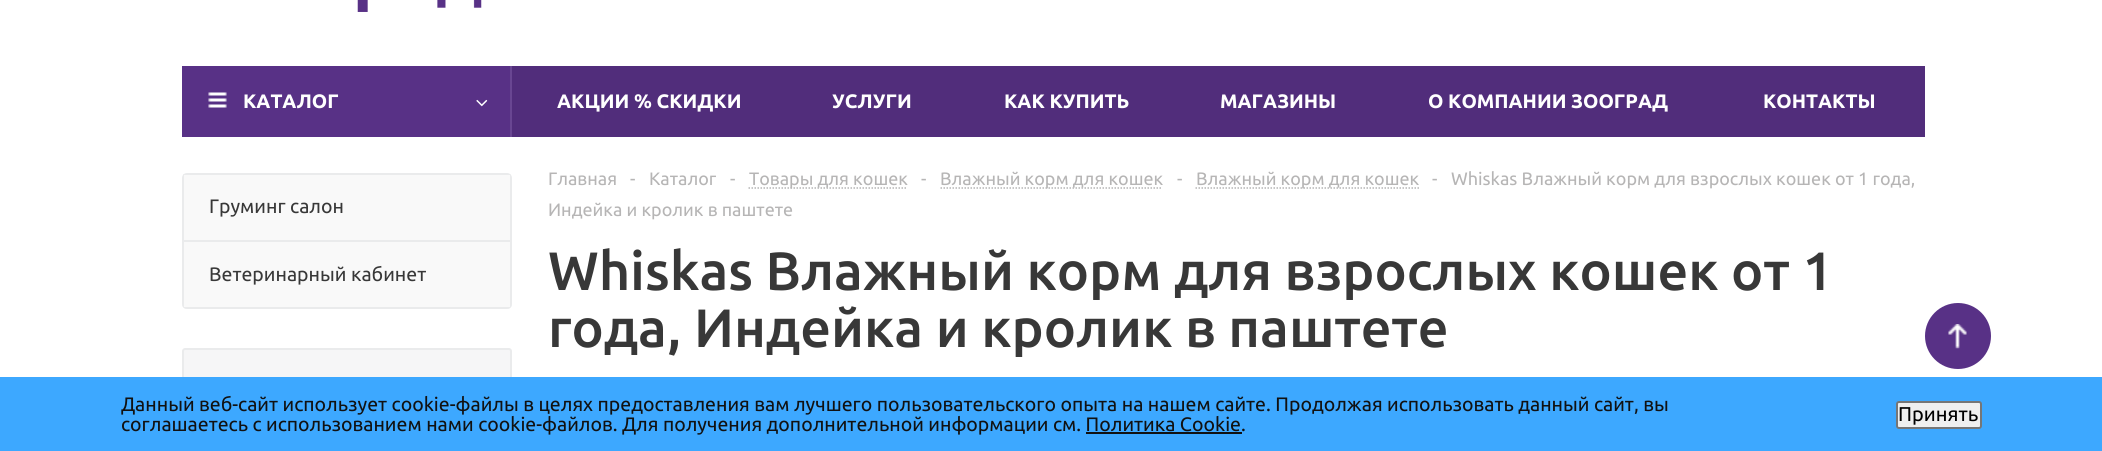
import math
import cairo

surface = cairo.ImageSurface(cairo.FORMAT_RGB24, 2102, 451)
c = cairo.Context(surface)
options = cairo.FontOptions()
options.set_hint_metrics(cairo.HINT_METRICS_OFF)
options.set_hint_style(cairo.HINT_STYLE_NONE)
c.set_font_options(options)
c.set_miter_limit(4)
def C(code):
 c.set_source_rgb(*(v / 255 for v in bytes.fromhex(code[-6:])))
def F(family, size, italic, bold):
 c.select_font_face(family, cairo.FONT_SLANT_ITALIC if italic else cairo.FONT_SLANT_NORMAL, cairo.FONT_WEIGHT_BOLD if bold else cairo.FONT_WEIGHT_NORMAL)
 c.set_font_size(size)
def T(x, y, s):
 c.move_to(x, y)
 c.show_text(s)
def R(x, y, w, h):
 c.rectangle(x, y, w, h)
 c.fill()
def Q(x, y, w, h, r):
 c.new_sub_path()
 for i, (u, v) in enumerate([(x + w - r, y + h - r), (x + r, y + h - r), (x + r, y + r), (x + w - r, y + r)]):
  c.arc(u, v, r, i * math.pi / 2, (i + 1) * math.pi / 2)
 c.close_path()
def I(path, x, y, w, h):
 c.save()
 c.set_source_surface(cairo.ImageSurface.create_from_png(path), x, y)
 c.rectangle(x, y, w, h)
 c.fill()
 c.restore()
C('ffffff')
c.paint()
I('1.png',357,0,125,12)
C('512d7b')
R(512,66,1413,71)
C('583186')
R(182,66,328,71)
I('2.png',208,92,19,16)
F('Ubuntu',19.5,0,1)
C('ffffff')
T(243,108,'КАТАЛОГ')
C('694692')
R(510,66,2,71)
I('3.png',476,99,12,8)
C('ffffff')
T(557,108,'АКЦИИ % СКИДКИ')
T(832,108,'УСЛУГИ')
T(1004,108,'КАК КУПИТЬ')
T(1220,108,'МАГАЗИНЫ')
T(1428,108,'О КОМПАНИИ ЗООГРАД')
T(1763,108,'КОНТАКТЫ')
C('f9f9f9')
R(183,174,327,66)
c.save()
Q(182,173,330,136,5)
c.clip()
C('eaebec')
R(182,173,330,2)
R(510,173,2,67)
R(182,173,2,67)
c.restore()
F('Ubuntu',19.5,0,0)
C('383838')
T(209,213,'Груминг салон')
C('f9f9f9')
c.new_path()
c.move_to(182,240)
c.line_to(512,240)
c.line_to(512,304)
c.curve_to(512,307,510,309,507,309)
c.line_to(187,309)
c.curve_to(184,309,182,307,182,304)
c.close_path()
c.fill()
C('eaebec')
c.set_fill_rule(cairo.FILL_RULE_EVEN_ODD)
c.new_path()
c.move_to(182,240)
c.line_to(182,304)
c.curve_to(182,307,184,309,187,309)
c.line_to(507,309)
c.curve_to(510,309,512,307,512,304)
c.line_to(512,240)
c.close_path()
c.move_to(184,242)
c.line_to(184,307)
c.line_to(510,307)
c.line_to(510,242)
c.close_path()
c.fill()
C('383838')
T(209,281,'Ветеринарный кабинет')
C('f6f6f7')
c.new_path()
c.move_to(185,349)
c.line_to(509,349)
c.curve_to(510,349,511,350,511,351)
c.line_to(511,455)
c.line_to(183,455)
c.line_to(183,351)
c.curve_to(183,350,184,349,185,349)
c.close_path()
c.fill_preserve()
C('eaebec')
c.stroke()
F('Ubuntu',18,0,0)
C('b6b5b5')
T(548,185,'Главная')
T(630,185,'-')
T(649,185,'Каталог')
T(730,185,'-')
c.new_path()
c.move_to(748.5,188)
c.line_to(907.5,188)
C('b4b4b4')
c.set_line_width(1.5)
c.set_dash([1.5,1.5])
c.stroke()
C('b6b5b5')
T(749,185,'Товары для кошек')
T(921,185,'-')
c.new_path()
c.move_to(940.5,188)
c.line_to(1162.5,188)
C('b4b4b4')
c.stroke()
C('b6b5b5')
T(940,185,'Влажный корм для кошек')
T(1177,185,'-')
c.new_path()
c.move_to(1195.5,188)
c.line_to(1419,188)
C('b4b4b4')
c.stroke()
C('b6b5b5')
T(1196,185,'Влажный корм для кошек')
T(1432,185,'-')
T(1451,185,'Whiskas Влажный корм для взрослых кошек от 1 года,')
T(548,216,'Индейка и кролик в паштете')
F('Ubuntu Medium',54,0,0)
C('383838')
T(548,290,'Whiskas Влажный корм для взрослых кошек от 1')
T(548,347,'года, Индейка и кролик в паштете')
C('583186')
c.new_path()
c.arc(1958,336,33,0,2 * math.pi)
c.fill()
I('4.png',1948,324,19,25)
C('3da8ff')
R(0,377,2102,74)
F('Ubuntu',19.5,0,0)
C('111111')
T(121,411,'Данный веб-сайт использует cookie-файлы в целях предоставления вам лучшего пользовательского опыта на нашем сайте. Продолжая использовать данный сайт, вы')
T(121,431,'соглашаетесь с использованием нами cookie-файлов. Для получения дополнительной информации см. Политика Cookie.')
R(1086,432,156,2)
C('efefef')
Q(1897,402,84,26,2)
c.fill_preserve()
C('767676')
c.set_line_width(2)
c.set_dash([])
c.stroke()
F('Ubuntu',20,0,0)
C('000000')
T(1898,421,'Принять')
surface.write_to_png('o.png')
